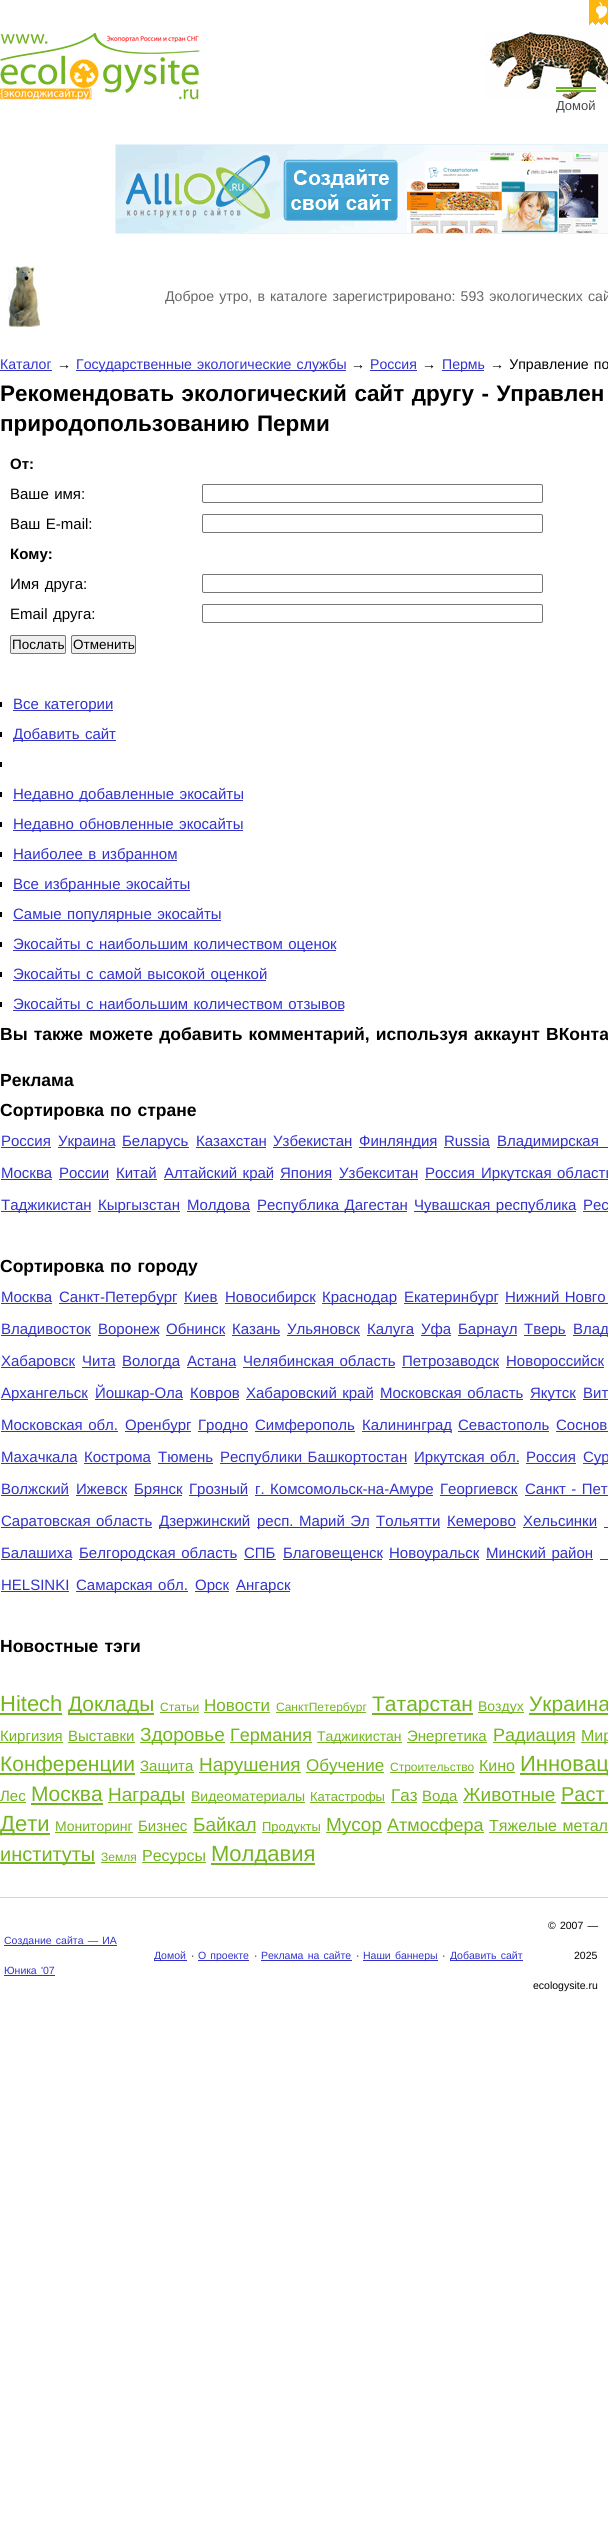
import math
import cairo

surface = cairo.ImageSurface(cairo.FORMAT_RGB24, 608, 2523)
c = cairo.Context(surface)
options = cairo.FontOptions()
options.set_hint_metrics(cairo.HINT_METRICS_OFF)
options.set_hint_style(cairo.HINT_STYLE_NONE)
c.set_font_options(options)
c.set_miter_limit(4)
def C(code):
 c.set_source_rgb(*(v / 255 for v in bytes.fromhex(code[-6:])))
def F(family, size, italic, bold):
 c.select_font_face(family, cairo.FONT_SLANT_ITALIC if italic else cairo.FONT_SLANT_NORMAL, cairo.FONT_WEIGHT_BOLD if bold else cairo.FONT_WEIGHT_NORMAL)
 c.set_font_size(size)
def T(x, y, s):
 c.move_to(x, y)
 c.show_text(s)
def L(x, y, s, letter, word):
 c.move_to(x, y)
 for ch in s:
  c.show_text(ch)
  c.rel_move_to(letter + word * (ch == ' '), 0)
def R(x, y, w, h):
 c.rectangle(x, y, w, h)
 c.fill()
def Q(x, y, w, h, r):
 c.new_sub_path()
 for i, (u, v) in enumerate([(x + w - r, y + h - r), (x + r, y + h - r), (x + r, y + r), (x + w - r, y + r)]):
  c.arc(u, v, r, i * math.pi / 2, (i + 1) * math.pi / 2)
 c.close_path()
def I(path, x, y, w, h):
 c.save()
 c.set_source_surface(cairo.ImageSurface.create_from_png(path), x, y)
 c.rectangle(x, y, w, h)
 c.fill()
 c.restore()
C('ffffff')
c.paint()
I('1.png',589,0,19,25)
I('2.png',0,33,200,67)
I('3.png',485,32,123,67)
I('4.png',556,87,40,5)
F('Liberation Sans',13,0,0)
C('484848')
T(556,110,'Домой')
I('5.png',115,144,493,90)
I('6.png',8,266,32,61)
F('Liberation Sans',14.1,0,0)
C('666666')
L(165,301,'Доброе утро, в каталоге зарегистрировано: 593 экологических сай',0,1.25)
C('3333cc')
T(0,369,'Каталог')
R(0,370,52,1)
C('000000')
T(57,369,'→')
C('3333cc')
R(76,370,270,1)
L(76,369,'Государственные экологические службы',0,1.25)
C('000000')
T(351,369,'→')
C('3333cc')
T(370,369,'Россия')
R(370,370,47,1)
C('000000')
T(422,369,'→')
C('3333cc')
R(442,370,42,1)
T(442,369,'Пермь')
C('000000')
L(490,369,'→ Управление по',0,1.25)
F('Liberation Sans',22.45,0,1)
L(0,401,'Рекомендовать экологический сайт другу - Управлен',0,1.25)
L(0,431,'природопользованию Перми',0,1.25)
F('Liberation Sans',15,0,1)
T(10,469,'От:')
F('Liberation Sans',15,0,0)
L(10,499,'Ваше имя:',0,1.25)
Q(202.5,484.5,340,18,1.5)
C('767676')
c.set_line_width(1)
c.stroke()
C('000000')
L(10,529,'Ваш E-mail:',0,1.25)
Q(202.5,514.5,340,18,1.5)
C('767676')
c.stroke()
F('Liberation Sans',15,0,1)
C('000000')
T(10,559,'Кому:')
F('Liberation Sans',15,0,0)
L(10,589,'Имя друга:',0,1.25)
Q(202.5,574.5,340,18,1.5)
C('767676')
c.stroke()
C('000000')
L(10,619,'Email друга:',0,1.25)
Q(202.5,604.5,340,18,1.5)
C('767676')
c.stroke()
C('efefef')
Q(10.5,635.5,55,18,1.5)
c.fill_preserve()
C('767676')
c.stroke()
F('Liberation Sans',13.5,0,0)
C('000000')
T(12,649,'Послать')
C('efefef')
Q(71.5,635.5,64,18,1.5)
c.fill_preserve()
C('767676')
c.stroke()
C('000000')
T(73,649,'Отменить')
R(0,702,2,5)
C('3333cc')
R(13,710,100,1)
F('Liberation Sans',15,0,0)
L(13,709,'Все категории',0,1.25)
C('000000')
R(0,732,2,5)
C('3333cc')
R(13,740,103,1)
L(13,739,'Добавить сайт',0,1.25)
C('000000')
R(0,762,2,5)
R(0,792,2,5)
C('3333cc')
R(13,800,230,1)
L(13,799,'Недавно добавленные экосайты',0,1.25)
C('000000')
R(0,822,2,5)
C('3333cc')
R(13,830,230,1)
L(13,829,'Недавно обновленные экосайты',0,1.25)
C('000000')
R(0,852,2,5)
C('3333cc')
R(13,860,164,1)
L(13,859,'Наиболее в избранном',0,1.25)
C('000000')
R(0,882,2,5)
C('3333cc')
R(13,890,177,1)
L(13,889,'Все избранные экосайты',0,1.25)
C('000000')
R(0,912,2,5)
C('3333cc')
R(13,920,208,1)
L(13,919,'Самые популярные экосайты',0,1.25)
C('000000')
R(0,942,2,5)
C('3333cc')
R(13,950,323,1)
L(13,949,'Экосайты с наибольшим количеством оценок',0,1.25)
C('000000')
R(0,972,2,5)
C('3333cc')
R(13,980,253,1)
L(13,979,'Экосайты с самой высокой оценкой',0,1.25)
C('000000')
R(0,1002,2,5)
C('3333cc')
L(13,1009,'Экосайты с наибольшим количеством отзывов',0,1.25)
R(13,1010,331,1)
F('Liberation Sans',17.5,0,1)
C('000000')
L(0,1040,'Вы также можете добавить комментарий, используя аккаунт ВКонта',0,1.25)
T(0,1086,'Реклама')
L(0,1116,'Сортировка по стране',0,1.25)
F('Liberation Sans',15,0,0)
C('3333cc')
T(1,1146,'Россия')
R(1,1147,50,1)
R(58,1147,57,1)
T(58,1146,'Украина')
R(122,1147,67,1)
T(122,1146,'Беларусь')
T(196,1146,'Казахстан')
R(196,1147,70,1)
T(273,1146,'Узбекистан')
R(273,1147,79,1)
R(359,1147,78,1)
T(359,1146,'Финляндия')
T(444,1146,'Russia')
R(444,1147,46,1)
R(497,1147,111,1)
L(497,1146,'Владимирская',0,1.25)
T(1,1178,'Москва')
R(1,1179,51,1)
T(59,1178,'России')
R(59,1179,50,1)
T(116,1178,'Китай')
R(116,1179,41,1)
R(164,1179,109,1)
L(164,1178,'Алтайский край',0,1.25)
T(280,1178,'Япония')
R(280,1179,52,1)
T(339,1178,'Узбекситан')
R(339,1179,79,1)
T(425,1178,'Россия')
R(425,1179,183,1)
L(481,1178,'Иркутская область',0,1.25)
R(1,1211,90,1)
T(1,1210,'Таджикистан')
R(98,1211,82,1)
T(98,1210,'Кыргызстан')
R(187,1211,63,1)
T(187,1210,'Молдова')
R(257,1211,150,1)
L(257,1210,'Республика Дагестан',0,1.25)
R(414,1211,162,1)
L(414,1210,'Чувашская республика',0,1.25)
L(583,1210,'Рес',0,1.25)
R(583,1211,25,1)
F('Liberation Sans',17.5,0,1)
C('000000')
L(0,1272,'Cортировка по городу',0,1.25)
F('Liberation Sans',15,0,0)
C('3333cc')
T(1,1302,'Москва')
R(1,1303,51,1)
R(59,1303,118,1)
T(59,1302,'Санкт-Петербург')
T(184,1302,'Киев')
R(184,1303,34,1)
R(225,1303,90,1)
T(225,1302,'Новосибирск')
R(322,1303,75,1)
T(322,1302,'Краснодар')
R(404,1303,94,1)
T(404,1302,'Екатеринбург')
L(505,1302,'Нижний Новго',0,1.25)
R(505,1303,103,1)
R(1,1335,90,1)
T(1,1334,'Владивосток')
R(98,1335,61,1)
T(98,1334,'Воронеж')
T(166,1334,'Обнинск')
R(166,1335,59,1)
T(232,1334,'Казань')
R(232,1335,48,1)
T(287,1334,'Ульяновск')
R(287,1335,73,1)
R(367,1335,47,1)
T(367,1334,'Калуга')
R(421,1335,30,1)
T(421,1334,'Уфа')
R(458,1335,59,1)
T(458,1334,'Барнаул')
R(524,1335,42,1)
T(524,1334,'Тверь')
R(573,1335,35,1)
T(573,1334,'Влад')
R(1,1367,74,1)
T(1,1366,'Хабаровск')
T(82,1366,'Чита')
R(82,1367,33,1)
R(122,1367,58,1)
T(122,1366,'Вологда')
T(187,1366,'Астана')
R(187,1367,49,1)
L(243,1366,'Челябинская область',0,1.25)
R(243,1367,152,1)
R(402,1367,97,1)
T(402,1366,'Петрозаводск')
R(506,1367,98,1)
T(506,1366,'Новороссийск')
R(1,1399,87,1)
T(1,1398,'Архангельск')
R(95,1399,88,1)
T(95,1398,'Йошкар-Ола')
R(190,1399,49,1)
T(190,1398,'Ковров')
R(246,1399,127,1)
L(246,1398,'Хабаровский край',0,1.25)
L(380,1398,'Московская область',0,1.25)
R(380,1399,143,1)
R(530,1399,46,1)
T(530,1398,'Якутск')
T(583,1398,'Вит')
R(583,1399,25,1)
L(1,1430,'Московская обл.',0,1.25)
R(1,1431,117,1)
R(125,1431,66,1)
T(125,1430,'Оренбург')
R(198,1431,50,1)
T(198,1430,'Гродно')
R(255,1431,100,1)
T(255,1430,'Симферополь')
R(362,1431,89,1)
T(362,1430,'Калининград')
T(458,1430,'Севастополь')
R(458,1431,91,1)
L(556,1430,'Соснов',0,1.25)
R(556,1431,52,1)
T(1,1462,'Махачкала')
R(1,1463,76,1)
R(84,1463,67,1)
T(84,1462,'Кострома')
T(158,1462,'Тюмень')
R(158,1463,55,1)
R(220,1463,187,1)
L(220,1462,'Республики Башкортостан',0,1.25)
R(414,1463,105,1)
L(414,1462,'Иркутская обл.',0,1.25)
T(526,1462,'Россия')
R(526,1463,50,1)
R(583,1463,25,1)
T(583,1462,'Сур')
T(1,1494,'Волжский')
R(1,1495,68,1)
T(76,1494,'Ижевск')
R(76,1495,51,1)
R(134,1495,48,1)
T(134,1494,'Брянск')
R(189,1495,59,1)
T(189,1494,'Грозный')
R(255,1495,178,1)
L(255,1494,'г. Комсомольск-на-Амуре',0,1.25)
R(440,1495,78,1)
T(440,1494,'Георгиевск')
L(525,1494,'Санкт - Пет',0,1.25)
R(525,1495,83,1)
R(1,1527,151,1)
L(1,1526,'Саратовская область',0,1.25)
R(159,1527,91,1)
T(159,1526,'Дзержинский')
R(257,1527,112,1)
L(257,1526,'респ. Марий Эл',0,1.25)
T(376,1526,'Тольятти')
R(376,1527,64,1)
R(447,1527,69,1)
T(447,1526,'Кемерово')
T(523,1526,'Хельсинки')
R(523,1527,74,1)
R(604,1527,4,1)
T(1,1558,'Балашиха')
R(1,1559,71,1)
R(79,1559,158,1)
L(79,1558,'Белгородская область',0,1.25)
T(244,1558,'СПБ')
R(244,1559,32,1)
R(283,1559,99,1)
T(283,1558,'Благовещенск')
R(389,1559,90,1)
T(389,1558,'Новоуральск')
R(486,1559,107,1)
L(486,1558,'Минский район',0,1.25)
R(600,1559,8,1)
T(1,1590,'HELSINKI')
R(1,1591,68,1)
R(76,1591,112,1)
L(76,1590,'Самарская обл.',0,1.25)
R(195,1591,34,1)
T(195,1590,'Орск')
R(236,1591,54,1)
T(236,1590,'Ангарск')
F('Liberation Sans',17.5,0,1)
C('000000')
L(0,1652,'Новостные тэги',0,1.25)
F('Liberation Sans',22,0,0)
C('73b521')
T(0,1711,'Hitech')
R(0,1713,62,2)
R(68,1713,86,2)
F('Liberation Sans',21,0,0)
T(68,1711,'Доклады')
F('Liberation Sans',12,0,0)
T(160,1711,'Статьи')
R(160,1712,39,1)
F('Liberation Sans',17,0,0)
T(204,1711,'Новости')
R(204,1712,66,1)
R(276,1712,90,1)
F('Liberation Sans',12,0,0)
T(276,1711,'СанктПетербург')
R(372,1713,101,2)
F('Liberation Sans',21,0,0)
T(372,1711,'Татарстан')
R(478,1712,46,1)
F('Liberation Sans',14,0,0)
T(478,1711,'Воздух')
R(529,1713,79,2)
F('Liberation Sans',21,0,0)
T(529,1711,'Украина')
R(0,1742,63,1)
F('Liberation Sans',15,0,0)
T(0,1741,'Киргизия')
T(68,1741,'Выставки')
R(68,1742,67,1)
R(140,1742,85,1)
F('Liberation Sans',19,0,0)
T(140,1741,'Здоровье')
R(230,1742,82,1)
F('Liberation Sans',18,0,0)
T(230,1741,'Германия')
R(317,1742,85,1)
F('Liberation Sans',14,0,0)
T(317,1741,'Таджикистан')
R(407,1742,80,1)
F('Liberation Sans',15,0,0)
T(407,1741,'Энергетика')
R(493,1742,82,1)
F('Liberation Sans',18,0,0)
T(493,1741,'Радиация')
R(581,1742,27,1)
F('Liberation Sans',16,0,0)
T(581,1741,'Мир')
R(0,1773,135,2)
F('Liberation Sans',21,0,0)
T(0,1771,'Конференции')
R(140,1772,54,1)
F('Liberation Sans',15,0,0)
T(140,1771,'Защита')
R(199,1772,102,1)
F('Liberation Sans',19,0,0)
T(199,1771,'Нарушения')
R(306,1772,78,1)
F('Liberation Sans',17,0,0)
T(306,1771,'Обучение')
R(390,1772,84,1)
F('Liberation Sans',12,0,0)
T(390,1771,'Строительство')
F('Liberation Sans',16,0,0)
T(479,1771,'Кино')
R(479,1772,36,1)
R(520,1773,88,2)
F('Liberation Sans',22,0,0)
T(520,1771,'Инновац')
F('Liberation Sans',15,0,0)
T(0,1801,'Лес')
R(0,1802,26,1)
F('Liberation Sans',21,0,0)
T(31,1801,'Москва')
R(31,1803,72,2)
R(108,1802,77,1)
F('Liberation Sans',19,0,0)
T(108,1801,'Награды')
R(191,1802,114,1)
F('Liberation Sans',14,0,0)
T(191,1801,'Видеоматериалы')
R(310,1802,75,1)
F('Liberation Sans',13,0,0)
T(310,1801,'Катастрофы')
F('Liberation Sans',17,0,0)
T(391,1801,'Газ')
R(391,1802,26,1)
R(422,1802,36,1)
F('Liberation Sans',15,0,0)
T(422,1801,'Вода')
F('Liberation Sans',19,0,0)
T(463,1801,'Животные')
R(463,1802,93,1)
F('Liberation Sans',20,0,0)
T(561,1801,'Раст')
R(561,1802,47,2)
R(0,1833,50,2)
F('Liberation Sans',22,0,0)
T(0,1831,'Дети')
R(55,1832,78,1)
F('Liberation Sans',14,0,0)
T(55,1831,'Мониторинг')
F('Liberation Sans',15,0,0)
T(138,1831,'Бизнес')
R(138,1832,49,1)
F('Liberation Sans',19,0,0)
T(193,1831,'Байкал')
R(193,1832,63,1)
R(262,1832,58,1)
F('Liberation Sans',13,0,0)
T(262,1831,'Продукты')
R(326,1832,56,1)
F('Liberation Sans',19,0,0)
T(326,1831,'Мусор')
R(387,1832,97,1)
F('Liberation Sans',18,0,0)
T(387,1831,'Атмосфера')
F('Liberation Sans',16,0,0)
L(489,1831,'Тяжелые метал',0,1.25)
R(489,1832,119,1)
R(0,1862,95,2)
F('Liberation Sans',20,0,0)
T(0,1861,'институты')
F('Liberation Sans',12,0,0)
T(101,1861,'Земля')
R(101,1862,35,1)
R(142,1862,64,1)
F('Liberation Sans',16,0,0)
T(142,1861,'Ресурсы')
R(211,1863,104,2)
F('Liberation Sans',22,0,0)
T(211,1861,'Молдавия')
C('d6d6d6')
R(0,1897,608,1)
C('3333cc')
R(4,1945,113,1)
F('Liberation Sans',10.5,0,0)
L(4,1944,'Создание сайта — ИА',0,1.25)
L(4,1974,'Юника \'07',0,1.25)
R(4,1975,51,1)
R(154,1960,33,1)
T(154,1959,'Домой')
C('000000')
T(191,1959,'·')
C('3333cc')
R(198,1960,51,1)
L(198,1959,'О проекте',0,1.25)
C('000000')
T(254,1959,'·')
C('3333cc')
L(261,1959,'Реклама на сайте',0,1.25)
R(261,1960,91,1)
C('000000')
T(356,1959,'·')
C('3333cc')
R(363,1960,75,1)
L(363,1959,'Наши баннеры',0,1.25)
C('000000')
T(442,1959,'·')
C('3333cc')
R(450,1960,73,1)
L(450,1959,'Добавить сайт',0,1.25)
C('000000')
L(548,1929,'© 2007 —',0,1.25)
T(574,1959,'2025')
T(533,1989,'ecologysite.ru')
surface.write_to_png('o.png')
